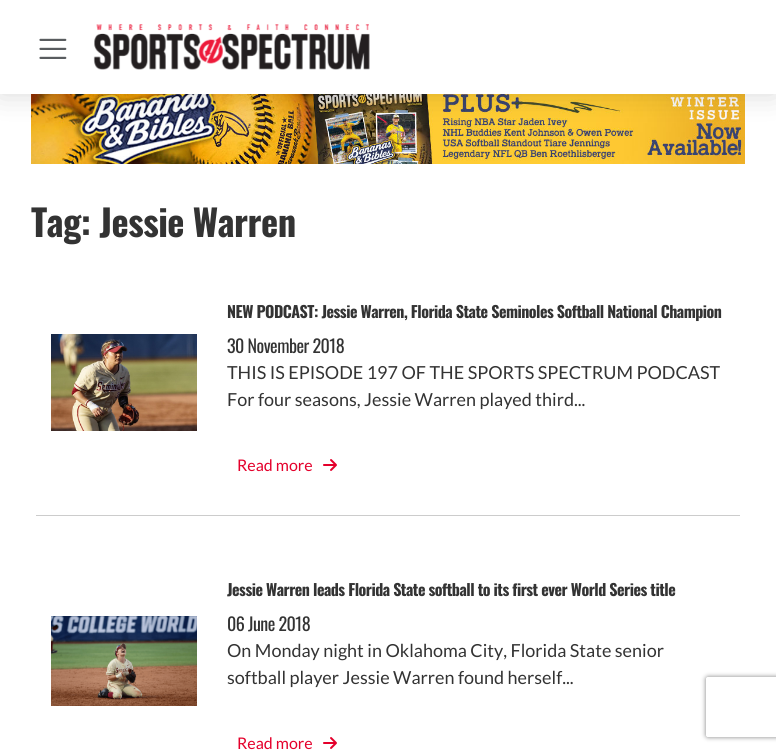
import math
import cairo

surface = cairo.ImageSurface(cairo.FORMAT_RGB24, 776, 751)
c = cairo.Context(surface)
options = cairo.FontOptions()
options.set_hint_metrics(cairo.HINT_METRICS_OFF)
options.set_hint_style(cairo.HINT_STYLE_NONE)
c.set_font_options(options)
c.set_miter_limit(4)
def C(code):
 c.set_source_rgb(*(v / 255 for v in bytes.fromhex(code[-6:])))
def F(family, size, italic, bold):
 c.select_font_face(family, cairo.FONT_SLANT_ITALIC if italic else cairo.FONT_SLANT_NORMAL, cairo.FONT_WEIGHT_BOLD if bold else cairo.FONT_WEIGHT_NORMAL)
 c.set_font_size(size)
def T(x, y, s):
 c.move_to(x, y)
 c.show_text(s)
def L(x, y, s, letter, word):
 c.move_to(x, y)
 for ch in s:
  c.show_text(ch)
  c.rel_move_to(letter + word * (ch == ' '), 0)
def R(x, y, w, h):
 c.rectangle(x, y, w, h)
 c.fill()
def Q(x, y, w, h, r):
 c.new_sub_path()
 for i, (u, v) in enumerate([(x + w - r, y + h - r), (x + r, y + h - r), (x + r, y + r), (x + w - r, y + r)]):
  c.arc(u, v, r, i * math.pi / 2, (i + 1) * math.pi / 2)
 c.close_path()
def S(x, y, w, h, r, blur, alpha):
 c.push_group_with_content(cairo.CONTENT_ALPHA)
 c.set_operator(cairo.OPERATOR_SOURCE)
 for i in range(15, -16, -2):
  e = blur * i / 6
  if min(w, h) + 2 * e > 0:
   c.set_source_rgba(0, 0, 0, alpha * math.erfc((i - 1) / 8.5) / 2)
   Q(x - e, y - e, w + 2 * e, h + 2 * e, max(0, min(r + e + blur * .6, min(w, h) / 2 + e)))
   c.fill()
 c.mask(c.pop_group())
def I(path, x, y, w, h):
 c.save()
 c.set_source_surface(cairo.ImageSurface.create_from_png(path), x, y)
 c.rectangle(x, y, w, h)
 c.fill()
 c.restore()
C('ffffff')
c.paint()
I('3.png',31,94,714,70)
C('000000')
S(0,0,776,94,0,15,.15)
C('ffffff')
R(0,0,776,94)
I('1.png',39,38,28,21)
I('2.png',93,24,277,46)
F('Oswald',36.5,0,1)
C('333333')
L(31,237,'Tag: Jessie Warren',-.5,0)
C('cccccc')
R(36,515,704,1)
I('4.png',51,334,146,97)
F('Oswald',16,0,1)
C('333333')
L(227,318,'NEW PODCAST: Jessie Warren, Florida State Seminoles Softball National Champion',-.5,0)
F('Oswald',18,0,0)
L(227,353,'30 November 2018',-.5,0)
F('Lato',18,0,0)
T(227,379,'THIS IS EPISODE 197 OF THE SPORTS SPECTRUM PODCAST')
T(227,406,'For four seasons, Jessie Warren played third...')
F('Lato',16,0,0)
C('e4002b')
T(237,471,'Read more')
I('5.png',323,459,14,12)
I('6.png',51,616,146,90)
F('Oswald',16,0,1)
C('333333')
L(227,596,'Jessie Warren leads Florida State softball to its first ever World Series title',-.5,0)
F('Oswald',18,0,0)
L(227,631,'06 June 2018',-.5,0)
F('Lato',18,0,0)
T(227,657,'On Monday night in Oklahoma City, Florida State senior')
T(227,684,'softball player Jessie Warren found herself...')
F('Lato',16,0,0)
C('e4002b')
T(237,749,'Read more')
I('5.png',323,737,14,12)
c.save()
c.set_fill_rule(cairo.FILL_RULE_EVEN_ODD)
c.new_path()
c.move_to(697,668)
c.line_to(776,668)
c.line_to(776,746)
c.line_to(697,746)
c.close_path()
c.move_to(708,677)
c.line_to(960,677)
c.curve_to(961,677,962,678,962,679)
c.line_to(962,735)
c.curve_to(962,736,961,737,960,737)
c.line_to(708,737)
c.curve_to(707,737,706,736,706,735)
c.line_to(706,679)
c.curve_to(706,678,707,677,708,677)
c.close_path()
c.clip()
C('808080')
S(706,677,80,60,2,2.5,1)
c.restore()
surface.write_to_png('o.png')
